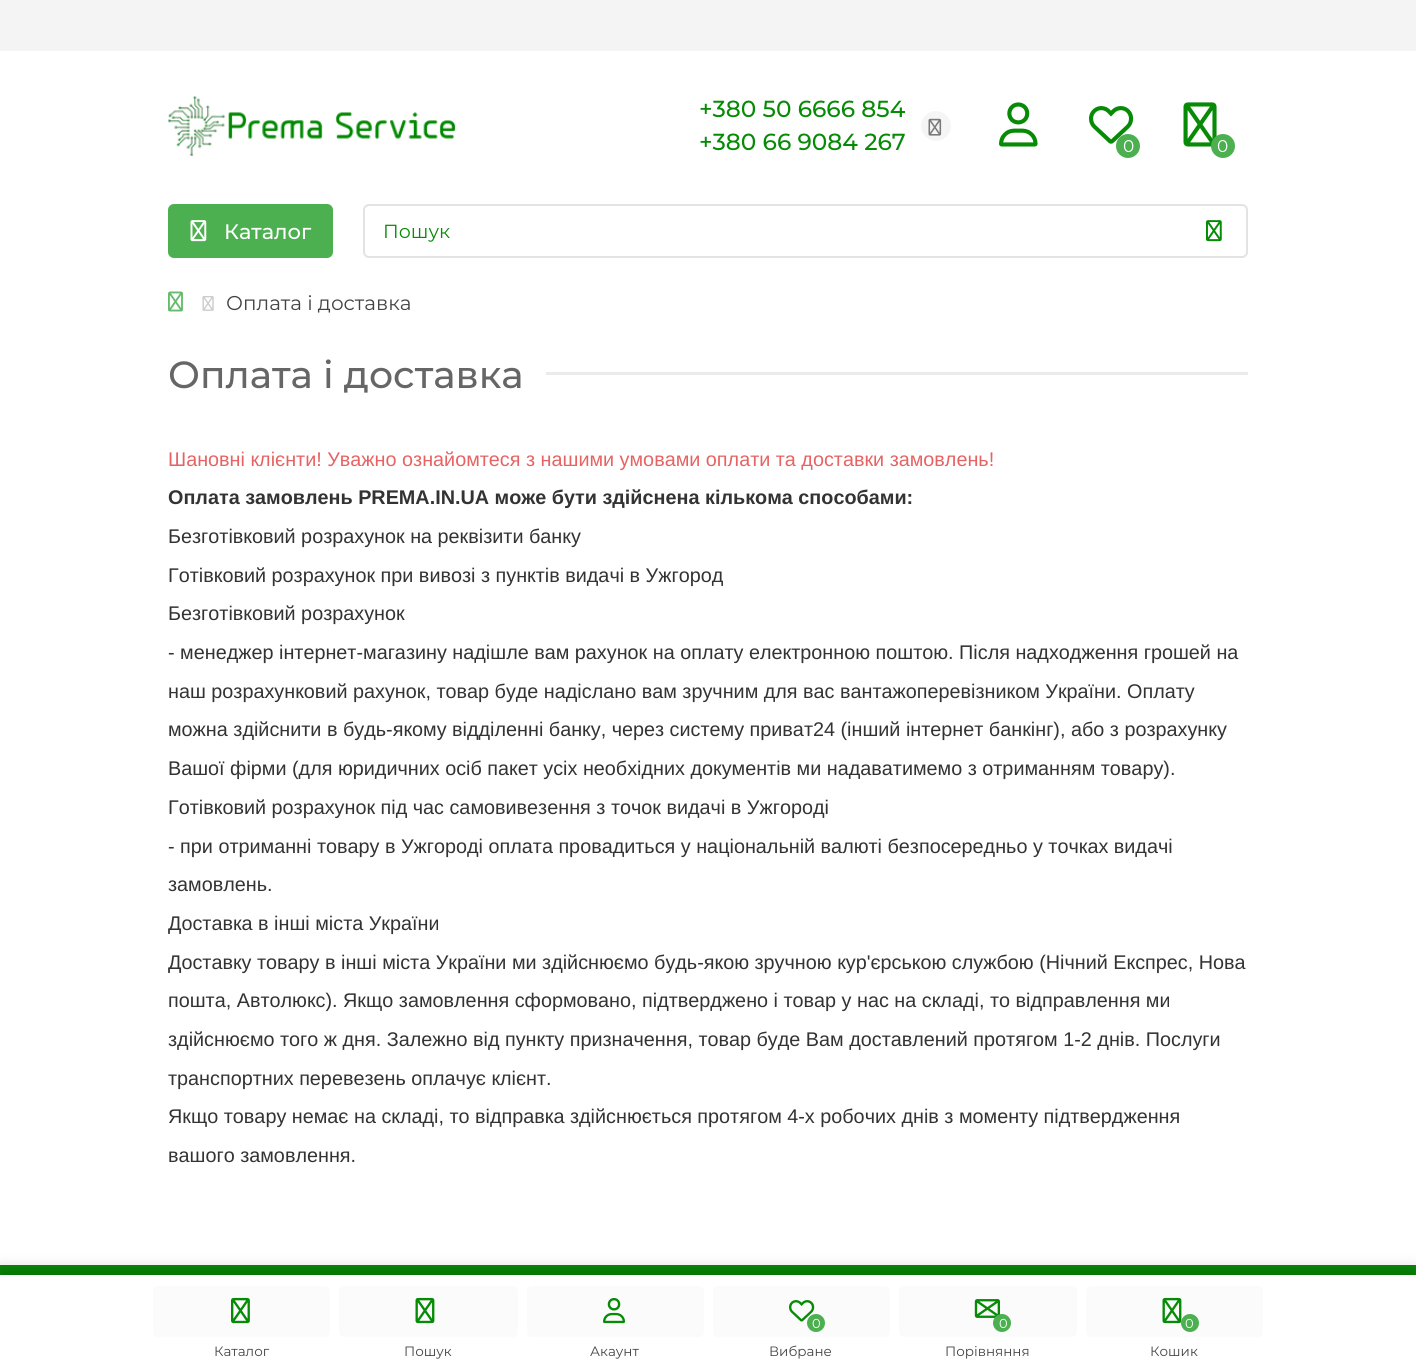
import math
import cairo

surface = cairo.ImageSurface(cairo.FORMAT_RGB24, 1416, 1367)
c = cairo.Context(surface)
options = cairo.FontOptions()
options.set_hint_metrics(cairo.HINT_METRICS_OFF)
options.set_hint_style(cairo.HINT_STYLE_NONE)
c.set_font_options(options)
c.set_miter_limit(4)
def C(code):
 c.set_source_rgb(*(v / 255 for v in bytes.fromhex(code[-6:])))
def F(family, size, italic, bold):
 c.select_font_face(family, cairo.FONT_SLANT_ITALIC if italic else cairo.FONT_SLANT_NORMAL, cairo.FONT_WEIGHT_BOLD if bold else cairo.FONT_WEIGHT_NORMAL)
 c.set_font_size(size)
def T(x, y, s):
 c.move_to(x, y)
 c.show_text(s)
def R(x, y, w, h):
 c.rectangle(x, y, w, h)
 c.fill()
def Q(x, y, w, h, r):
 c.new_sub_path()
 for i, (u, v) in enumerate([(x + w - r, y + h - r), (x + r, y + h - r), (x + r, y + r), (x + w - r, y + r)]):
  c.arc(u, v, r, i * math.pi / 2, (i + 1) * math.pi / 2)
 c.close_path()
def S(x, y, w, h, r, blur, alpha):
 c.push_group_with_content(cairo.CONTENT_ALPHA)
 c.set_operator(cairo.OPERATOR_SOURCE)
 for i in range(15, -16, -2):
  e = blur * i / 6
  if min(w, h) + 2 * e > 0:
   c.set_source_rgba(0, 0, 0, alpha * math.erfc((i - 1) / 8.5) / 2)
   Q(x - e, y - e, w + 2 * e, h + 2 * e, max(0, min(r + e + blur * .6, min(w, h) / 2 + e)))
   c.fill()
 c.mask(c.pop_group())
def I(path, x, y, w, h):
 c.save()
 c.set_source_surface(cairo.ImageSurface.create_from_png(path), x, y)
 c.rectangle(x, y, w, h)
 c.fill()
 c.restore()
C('ffffff')
c.paint()
C('f4f4f4')
R(0,0,1416,51)
I('1.png',168,96,288,60)
F('Montserrat Medium',23.25,0,0)
C('078b07')
T(699,117,'+380 50 6666 854')
T(699,150,'+380 66 9084 267')
C('f5f5f5')
c.new_path()
c.arc(936,126,15,0,2 * math.pi)
c.fill()
I('2.png',928,118,14,18)
I('3.png',999,102,39,45)
I('4.png',1089,106,45,38)
C('4caf50')
c.arc(1128,146,12,0,2 * math.pi)
c.fill()
F('Montserrat',17,0,0)
C('ffffff')
T(1123,152,'0')
I('5.png',1183,102,34,45)
C('4caf50')
c.arc(1223,146,12,0,2 * math.pi)
c.fill()
C('ffffff')
T(1217,152,'0')
C('4caf50')
Q(168,204,165,54,6)
c.fill()
I('6.png',190,220,17,22)
F('Montserrat Medium',21,0,0)
C('ffffff')
T(224,239,'Каталог')
Q(364,205,883,52,5)
C('e3e3e3')
c.stroke()
F('Montserrat',19,0,0)
C('078b07')
T(383,238,'Пошук')
I('7.png',1206,220,16,22)
I('8.png',168,291,15,21)
I('9.png',202,296,12,15)
F('Montserrat',20,0,0)
C('434343')
T(226,310,'Оплата і доставка')
F('Montserrat Medium',37.75,0,0)
C('666666')
T(168,388,'Оплата і доставка')
C('ebebeb')
R(546,372,702,3)
F('Liberation Sans',19.8,0,0)
C('e76363')
T(168,466,'Шановні клієнти! Уважно ознайомтеся з нашими умовами оплати та доставки замовлень!')
F('Liberation Sans',19.8,0,1)
C('333333')
T(168,504,'Оплата замовлень PREMA.IN.UA може бути здійснена кількома способами:')
F('Liberation Sans',19.8,0,0)
T(168,543,'Безготівковий розрахунок на реквізити банку')
T(168,582,'Готівковий розрахунок при вивозі з пунктів видачі в Ужгород')
T(168,620,'Безготівковий розрахунок')
T(168,659,'- менеджер інтернет-магазину надішле вам рахунок на оплату електронною поштою. Після надходження грошей на')
T(168,698,'наш розрахунковий рахунок, товар буде надіслано вам зручним для вас вантажоперевізником України. Оплату')
T(168,736,'можна здійснити в будь-якому відділенні банку, через систему приват24 (інший інтернет банкінг), або з розрахунку')
T(168,775,'Вашої фірми (для юридичних осіб пакет усіх необхідних документів ми надаватимемо з отриманням товару).')
T(168,814,'Готівковий розрахунок під час самовивезення з точок видачі в Ужгороді')
T(168,853,'- при отриманні товару в Ужгороді оплата провадиться у національній валюті безпосередньо у точках видачі')
T(168,891,'замовлень.')
T(168,930,'Доставка в інші міста України')
T(168,969,'Доставку товару в інші міста України ми здійснюємо будь-якою зручною кур\'єрською службою (Нічний Експрес, Нова')
T(168,1007,'пошта, Автолюкс). Якщо замовлення сформовано, підтверджено і товар у нас на складі, то відправлення ми')
T(168,1046,'здійснюємо того ж дня. Залежно від пункту призначення, товар буде Вам доставлений протягом 1-2 днів. Послуги')
T(168,1085,'транспортних перевезень оплачує клієнт.')
T(168,1123,'Якщо товару немає на складі, то відправка здійснюється протягом 4-х робочих днів з моменту підтвердження')
T(168,1162,'вашого замовлення.')
C('078b07')
R(0,1265,1416,10)
C('000000')
S(0,1269,1416,93,0,7.5,.2)
C('ffffff')
R(0,1275,1416,92)
C('fbfbfb')
Q(153,1286,177,51,5)
c.fill()
I('10.png',231,1297,19,27)
F('Montserrat',13.5,0,0)
C('434343')
T(214,1356,'Каталог')
C('fbfbfb')
Q(339,1286,179,51,5)
c.fill()
I('11.png',415,1297,20,27)
C('434343')
T(404,1356,'Пошук')
C('fbfbfb')
Q(527,1286,177,51,5)
c.fill()
I('12.png',603,1298,22,26)
C('434343')
T(590,1356,'Акаунт')
C('fbfbfb')
Q(713,1286,177,51,5)
c.fill()
I('13.png',789,1300,26,22)
C('4caf50')
c.arc(816,1323,9,0,2 * math.pi)
c.fill()
F('Montserrat',13,0,0)
C('ffffff')
T(812,1328,'0')
F('Montserrat',13.5,0,0)
C('434343')
T(769,1356,'Вибране')
C('fbfbfb')
Q(899,1286,178,51,5)
c.fill()
I('14.png',974,1299,26,19)
C('4caf50')
c.arc(1002,1323,9,0,2 * math.pi)
c.fill()
F('Montserrat',13,0,0)
C('ffffff')
T(999,1328,'0')
F('Montserrat',13.5,0,0)
C('434343')
T(945,1356,'Порівняння')
C('fbfbfb')
Q(1086,1286,177,51,5)
c.fill()
I('11.png',1162,1297,20,27)
C('4caf50')
c.arc(1190,1323,9,0,2 * math.pi)
c.fill()
F('Montserrat',13,0,0)
C('ffffff')
T(1185,1328,'0')
F('Montserrat',13.5,0,0)
C('434343')
T(1150,1356,'Кошик')
surface.write_to_png('o.png')
